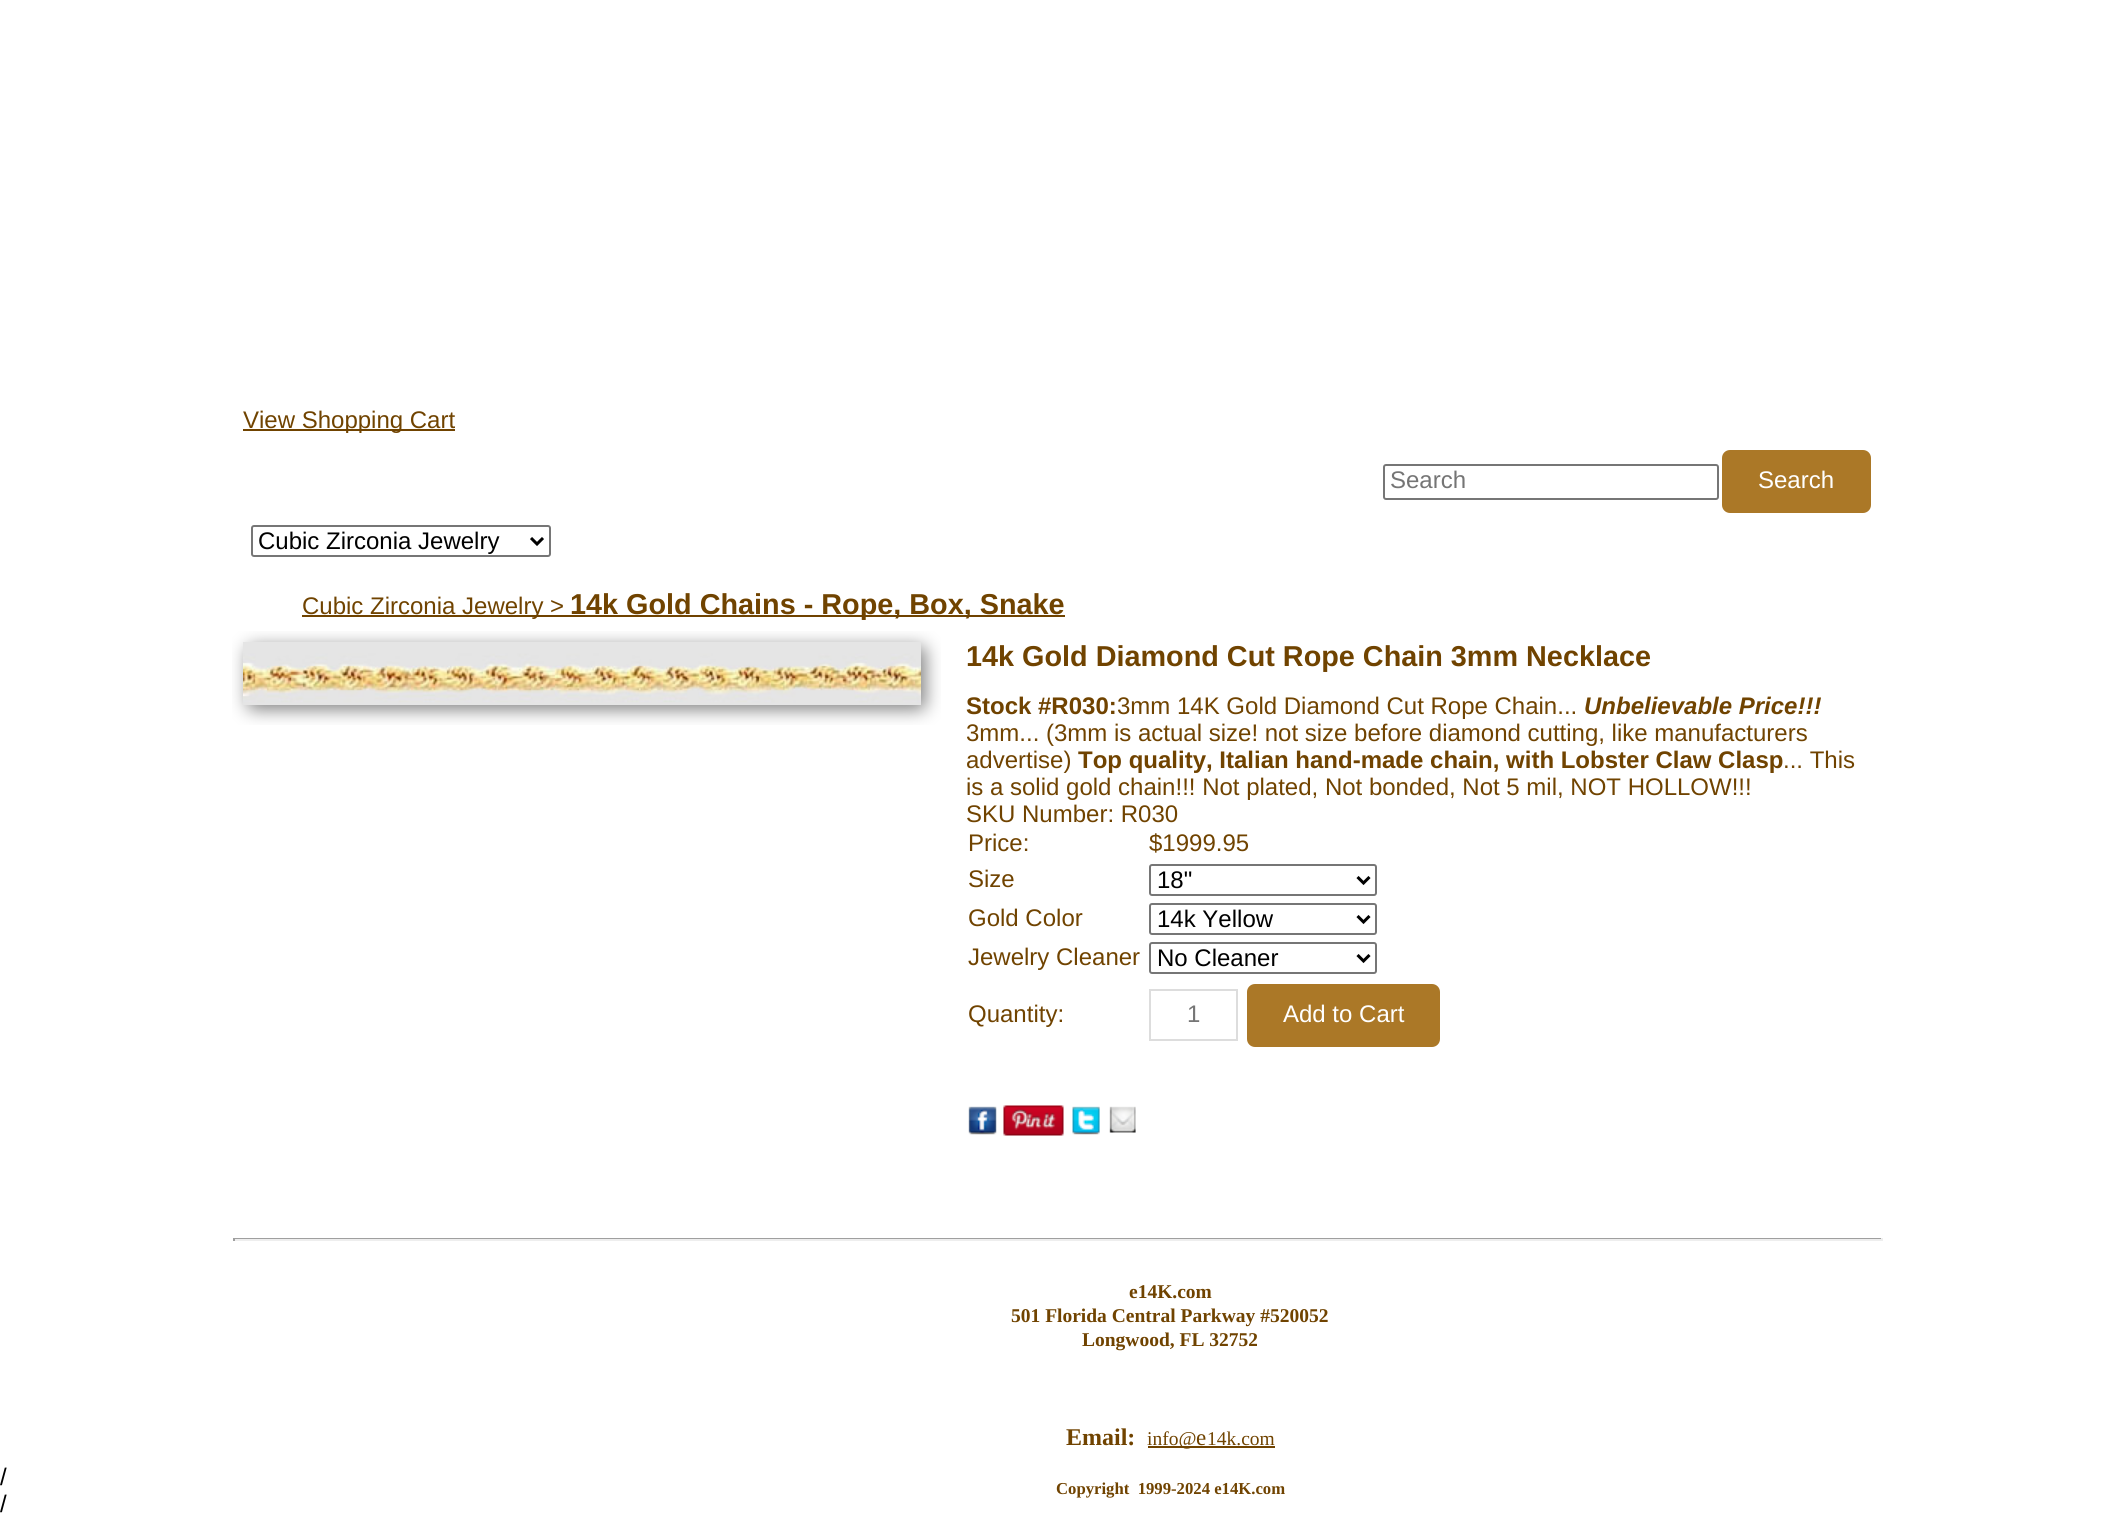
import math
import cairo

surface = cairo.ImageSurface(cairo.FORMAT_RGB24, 2115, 1518)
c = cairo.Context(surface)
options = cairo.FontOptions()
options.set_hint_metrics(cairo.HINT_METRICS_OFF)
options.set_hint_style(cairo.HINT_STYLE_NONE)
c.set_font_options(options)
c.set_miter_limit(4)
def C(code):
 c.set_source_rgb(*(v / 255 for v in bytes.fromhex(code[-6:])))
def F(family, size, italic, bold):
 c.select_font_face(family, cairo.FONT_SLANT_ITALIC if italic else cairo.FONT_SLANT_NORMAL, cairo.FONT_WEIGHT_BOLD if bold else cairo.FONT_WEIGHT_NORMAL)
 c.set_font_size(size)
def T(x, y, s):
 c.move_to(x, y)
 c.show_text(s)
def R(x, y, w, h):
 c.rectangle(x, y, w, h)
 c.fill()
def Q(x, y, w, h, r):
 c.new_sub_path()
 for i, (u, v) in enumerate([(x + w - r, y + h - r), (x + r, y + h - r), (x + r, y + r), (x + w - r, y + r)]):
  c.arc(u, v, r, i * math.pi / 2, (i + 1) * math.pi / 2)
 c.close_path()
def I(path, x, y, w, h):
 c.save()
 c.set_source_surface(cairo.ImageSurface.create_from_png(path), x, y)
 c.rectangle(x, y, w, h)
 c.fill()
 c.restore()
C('ffffff')
c.paint()
F('Liberation Sans',24,0,0)
C('000000')
T(0,1485,'/')
T(0,1512,'/')
C('704300')
R(243,429,212,2)
T(243,428,'View Shopping Cart')
Q(1384,465,334,34,2)
C('767676')
c.stroke()
C('757575')
T(1390,488,'Search')
C('ab7827')
Q(1722,450,149,63,8)
c.fill()
C('ffffff')
T(1758,488,'Search')
Q(252,526,298,30,2)
C('767676')
c.stroke()
c.new_path()
c.move_to(531,538)
c.line_to(537,544)
c.line_to(543,538)
C('000000')
c.set_line_width(3)
c.stroke()
T(258,549,'Cubic Zirconia Jewelry')
C('704300')
R(302,615,763,2)
T(302,614,'Cubic Zirconia Jewelry >')
F('Liberation Sans',28.8,0,1)
T(570,614,'14k Gold Chains - Rope, Box, Snake')
I('1.png',232,631,709,94)
T(966,666,'14k Gold Diamond Cut Rope Chain 3mm Necklace')
F('Liberation Sans',24,0,1)
T(966,714,'Stock #R030:')
F('Liberation Sans',24,0,0)
T(1117,714,'3mm 14K Gold Diamond Cut Rope Chain...')
F('Liberation Sans',24,1,1)
T(1584,714,'Unbelievable Price!!!')
F('Liberation Sans',24,0,0)
T(966,741,'3mm... (3mm is actual size! not size before diamond cutting, like manufacturers')
T(966,768,'advertise)')
F('Liberation Sans',24,0,1)
T(1078,768,'Top quality, Italian hand-made chain, with Lobster Claw Clasp')
F('Liberation Sans',24,0,0)
T(1783,768,'... This')
T(966,795,'is a solid gold chain!!! Not plated, Not bonded, Not 5 mil, NOT HOLLOW!!!')
T(966,822,'SKU Number: R030')
T(968,851,'Price:')
T(1149,851,'$1999.95')
T(968,887,'Size')
Q(1150,865,226,30,2)
C('767676')
c.set_line_width(2)
c.stroke()
c.new_path()
c.move_to(1357.5,877)
c.line_to(1363.5,883)
c.line_to(1369.5,877)
C('000000')
c.set_line_width(3)
c.stroke()
T(1157,888,'18"')
C('704300')
T(968,926,'Gold Color')
Q(1150,904,226,30,2)
C('767676')
c.set_line_width(2)
c.stroke()
c.new_path()
c.move_to(1357.5,916)
c.line_to(1363.5,922)
c.line_to(1369.5,916)
C('000000')
c.set_line_width(3)
c.stroke()
T(1157,927,'14k Yellow')
C('704300')
T(968,965,'Jewelry Cleaner')
Q(1150,943,226,30,2)
C('767676')
c.set_line_width(2)
c.stroke()
c.new_path()
c.move_to(1357.5,955)
c.line_to(1363.5,961)
c.line_to(1369.5,955)
C('000000')
c.set_line_width(3)
c.stroke()
T(1157,966,'No Cleaner')
C('704300')
T(968,1022,'Quantity:')
c.rectangle(1150,990,87,50)
C('dddddd')
c.set_line_width(2)
c.stroke()
C('757575')
T(1187,1022,'1')
C('ab7827')
Q(1247,984,193,63,8)
c.fill()
C('ffffff')
T(1283,1022,'Add to Cart')
I('2.png',968,1106,29,29)
I('3.png',1003,1105,61,31)
I('4.png',1072,1106,28,29)
I('5.png',1109,1106,27,27)
C('9f9f9f')
R(233,1238,1650,1)
C('eeeeee')
R(1881,1238,2,3)
R(233,1239,1650,2)
C('9f9f9f')
R(233,1238,2,3)
F('Liberation Serif',19.5,0,1)
C('704300')
T(1129,1298,'e14K.com')
T(1011,1322,'501 Florida Central Parkway #520052')
T(1082,1346,'Longwood, FL 32752')
F('Liberation Serif',24,0,1)
T(1066,1445,'Email:')
R(1148,1446,127,2)
F('Liberation Serif',19.5,0,0)
T(1147,1445,'info@')
F('Liberation Serif',23,0,0)
T(1196,1445,'e')
F('Liberation Serif',19.5,0,0)
T(1207,1445,'14k.com')
F('Liberation Serif',16.7,0,1)
T(1056,1494,'Copyright  1999-2024 e14K.com')
surface.write_to_png('o.png')
